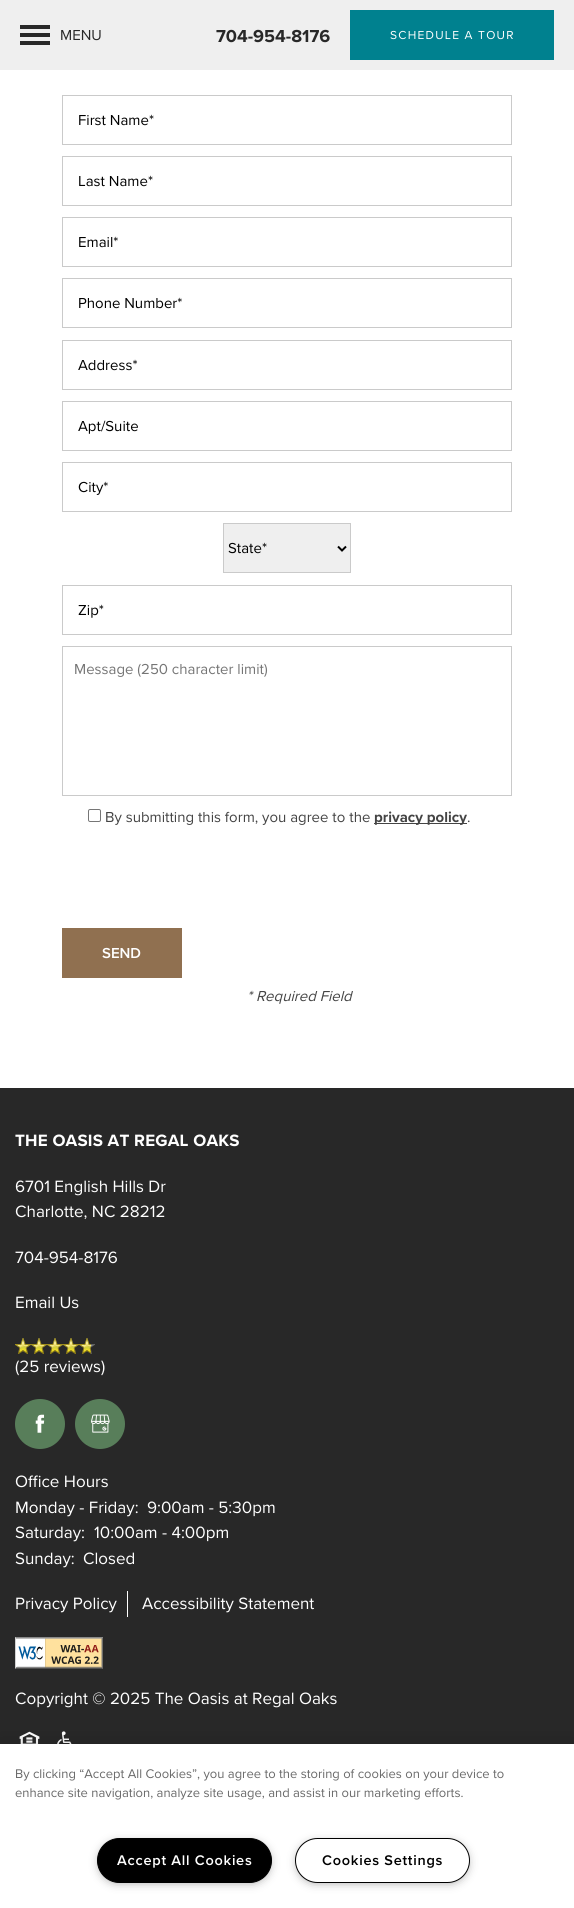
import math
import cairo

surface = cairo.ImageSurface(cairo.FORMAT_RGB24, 574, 1908)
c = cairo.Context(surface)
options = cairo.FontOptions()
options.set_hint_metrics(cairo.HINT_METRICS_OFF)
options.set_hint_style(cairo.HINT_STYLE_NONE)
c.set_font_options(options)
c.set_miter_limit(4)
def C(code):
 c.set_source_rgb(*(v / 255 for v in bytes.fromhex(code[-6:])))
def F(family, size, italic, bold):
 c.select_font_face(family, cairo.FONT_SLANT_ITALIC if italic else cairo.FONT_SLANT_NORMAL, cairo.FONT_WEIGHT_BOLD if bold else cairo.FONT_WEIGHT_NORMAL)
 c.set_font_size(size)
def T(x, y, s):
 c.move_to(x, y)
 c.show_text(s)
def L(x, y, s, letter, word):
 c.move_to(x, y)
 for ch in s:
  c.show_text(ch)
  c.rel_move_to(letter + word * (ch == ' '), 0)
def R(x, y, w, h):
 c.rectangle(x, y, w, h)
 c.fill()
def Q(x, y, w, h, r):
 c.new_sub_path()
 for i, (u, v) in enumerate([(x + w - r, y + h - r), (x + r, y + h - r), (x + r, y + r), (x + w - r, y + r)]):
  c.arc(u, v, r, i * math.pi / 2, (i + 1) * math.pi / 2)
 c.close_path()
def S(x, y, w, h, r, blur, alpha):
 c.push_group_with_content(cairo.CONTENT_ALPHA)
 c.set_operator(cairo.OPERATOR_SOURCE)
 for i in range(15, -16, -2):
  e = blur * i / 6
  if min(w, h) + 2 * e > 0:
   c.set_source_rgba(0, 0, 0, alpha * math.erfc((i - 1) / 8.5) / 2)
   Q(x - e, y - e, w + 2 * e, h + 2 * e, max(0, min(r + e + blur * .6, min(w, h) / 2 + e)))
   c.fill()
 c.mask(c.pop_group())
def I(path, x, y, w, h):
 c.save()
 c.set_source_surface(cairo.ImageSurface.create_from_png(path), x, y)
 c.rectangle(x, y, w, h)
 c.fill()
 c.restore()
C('ffffff')
c.paint()
C('efefef')
R(0,0,574,70)
C('282828')
R(20,25,30,4)
R(20,33,30,4)
R(20,41,30,4)
F('Proxima Nova',15,0,0)
T(60,40,'MENU')
F('Proxima Nova',18,0,1)
T(216,42,'704-954-8176')
C('00818f')
R(350,10,204,50)
F('Proxima Nova',12,0,0)
C('ffffff')
L(390,39,'SCHEDULE A TOUR',1.25,0)
c.rectangle(62.5,95.5,449,49)
C('cacaca')
c.set_line_width(1)
c.stroke()
F('Proxima Nova',15,0,0)
C('000000')
T(78,125,'First Name*')
c.rectangle(62.5,156.5,449,49)
C('cacaca')
c.stroke()
C('000000')
T(78,186,'Last Name*')
c.rectangle(62.5,217.5,449,49)
C('cacaca')
c.stroke()
C('000000')
T(78,247,'Email*')
c.rectangle(62.5,278.5,449,49)
C('cacaca')
c.stroke()
C('000000')
T(78,308,'Phone Number*')
c.rectangle(62.5,340.5,449,49)
C('cacaca')
c.stroke()
C('000000')
T(78,370,'Address*')
c.rectangle(62.5,401.5,449,49)
C('cacaca')
c.stroke()
C('000000')
T(78,431,'Apt/Suite')
c.rectangle(62.5,462.5,449,49)
C('cacaca')
c.stroke()
C('000000')
T(78,492,'City*')
C('efefef')
c.rectangle(223.5,523.5,127,49)
c.fill_preserve()
C('cacaca')
c.stroke()
c.new_path()
c.move_to(338,546.5)
c.line_to(342,550.5)
c.line_to(346,546.5)
C('000000')
c.set_line_width(2)
c.stroke()
T(228,553,'State*')
c.rectangle(62.5,585.5,449,49)
C('cacaca')
c.set_line_width(1)
c.stroke()
C('000000')
T(78,615,'Zip*')
c.rectangle(62.5,646.5,449,149)
C('cacaca')
c.stroke()
C('757575')
T(74,674,'Message (250 character limit)')
Q(88.5,809.5,12,12,1.5)
C('767676')
c.stroke()
C('444444')
T(105,822,'By submitting this form, you agree to the')
R(374,823,93,1)
F('Proxima Nova',15,0,1)
T(374,822,'privacy policy')
F('Proxima Nova',15,0,0)
T(467,822,'.')
C('907050')
R(62,928,120,50)
F('Proxima Nova SemiBold',15,0,0)
C('ffffff')
T(102,958,'SEND')
F('Proxima Nova',15,1,0)
C('444444')
T(247,1001,'* Required Field')
C('282828')
R(0,1088,574,656)
F('Proxima Nova',17,0,1)
C('ffffff')
L(15,1146,'THE OASIS AT REGAL OAKS',.2,0)
F('Proxima Nova',17,0,0)
T(15,1192,'6701 English Hills Dr')
T(15,1217,'Charlotte, NC 28212')
T(15,1263,'704-954-8176')
T(15,1308,'Email Us')
I('1.png',15,1338,80,16)
I('2.png',15,1338,76,16)
T(15,1372,'(25 reviews)')
C('587e5a')
c.new_path()
c.arc(40,1424,25,0,2 * math.pi)
c.fill()
I('3.png',35,1414,10,19)
c.arc(100,1424,25,0,2 * math.pi)
c.fill()
I('4.png',91,1414,19,19)
C('ffffff')
T(15,1487,'Office Hours')
T(15,1513,'Monday - Friday:')
T(147,1513,'9:00am - 5:30pm')
T(15,1538,'Saturday:')
T(94,1538,'10:00am - 4:00pm')
T(15,1564,'Sunday:')
T(83,1564,'Closed')
R(127,1591,1,26)
T(15,1609,'Privacy Policy')
T(142,1609,'Accessibility Statement')
I('5.png',15,1637,88,32)
T(15,1704,'Copyright © 2025 The Oasis at Regal Oaks')
I('6.png',19,1731,21,13)
I('7.png',57,1731,15,13)
C('000000')
S(0,1744,574,164,0,9,.2)
C('ffffff')
R(0,1744,574,164)
F('Proxima Nova',13,0,0)
C('696969')
T(15,1778,'By clicking “Accept All Cookies”, you agree to the storing of cookies on your device to')
T(15,1797,'enhance site navigation, analyze site usage, and assist in our marketing efforts.')
C('999999')
S(100,1843,169,39,19.5,5,1)
C('000000')
Q(97.5,1838.5,174,44,22)
c.fill_preserve()
c.stroke()
F('Proxima Nova SemiBold',14.5,0,0)
C('ffffff')
L(117,1865,'Accept All Cookies',.75,0)
C('999999')
S(298,1843,169,39,19.5,5,1)
C('ffffff')
Q(295.5,1838.5,174,44,22)
c.fill_preserve()
C('000000')
c.stroke()
L(322,1865,'Cookies Settings',.75,0)
surface.write_to_png('o.png')
